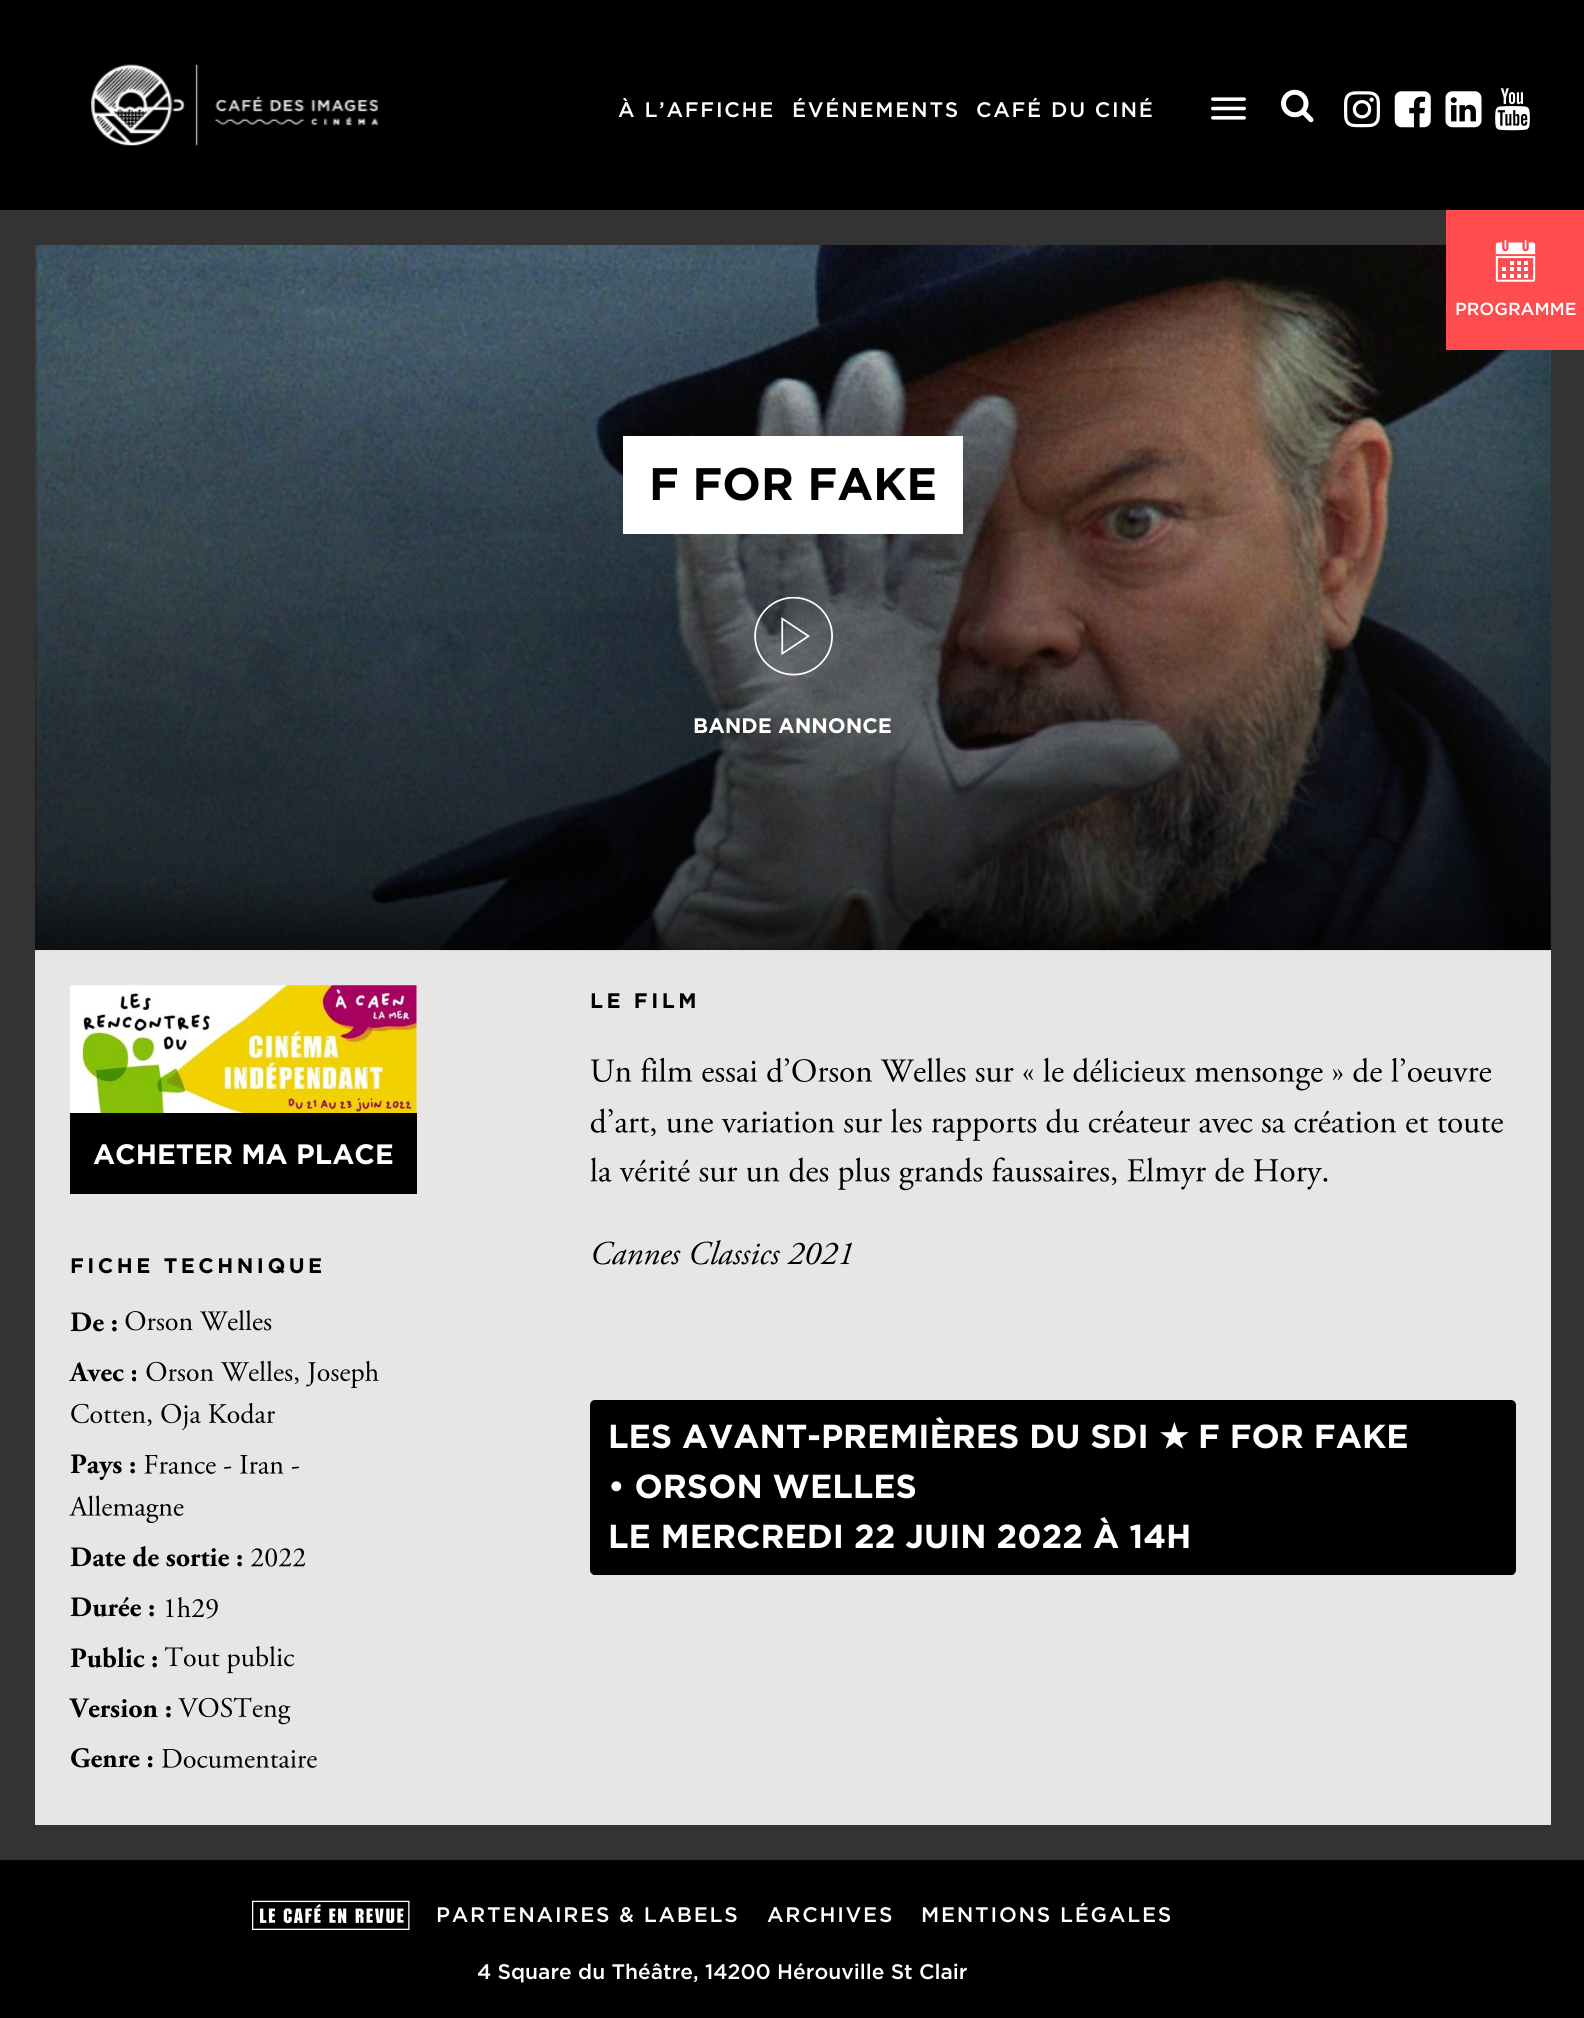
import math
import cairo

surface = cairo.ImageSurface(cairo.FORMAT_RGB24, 1584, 2018)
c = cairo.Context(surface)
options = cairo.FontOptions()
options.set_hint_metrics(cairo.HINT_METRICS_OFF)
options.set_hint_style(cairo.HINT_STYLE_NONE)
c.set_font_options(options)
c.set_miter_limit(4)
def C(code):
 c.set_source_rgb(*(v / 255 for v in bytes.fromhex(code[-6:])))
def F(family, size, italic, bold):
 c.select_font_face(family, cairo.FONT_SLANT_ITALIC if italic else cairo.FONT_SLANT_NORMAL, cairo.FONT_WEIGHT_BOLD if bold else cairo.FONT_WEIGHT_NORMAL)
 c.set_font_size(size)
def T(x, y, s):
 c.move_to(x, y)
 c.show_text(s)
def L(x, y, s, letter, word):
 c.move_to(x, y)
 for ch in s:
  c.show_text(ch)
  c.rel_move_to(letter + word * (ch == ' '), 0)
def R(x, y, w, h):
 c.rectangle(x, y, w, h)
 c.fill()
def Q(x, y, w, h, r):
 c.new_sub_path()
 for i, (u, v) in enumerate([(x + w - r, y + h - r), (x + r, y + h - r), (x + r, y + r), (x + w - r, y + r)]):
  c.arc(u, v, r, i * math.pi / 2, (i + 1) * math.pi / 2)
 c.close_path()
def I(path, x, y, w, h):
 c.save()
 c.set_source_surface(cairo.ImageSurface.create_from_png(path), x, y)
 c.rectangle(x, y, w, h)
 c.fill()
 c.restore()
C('333333')
c.paint()
C('000000')
R(0,0,1584,210)
I('1.png',91,64,287,82)
F('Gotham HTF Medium',21,0,0)
C('ffffff')
L(618,117,'À L’AFFICHE',1.75,0)
L(792,117,'ÉVÉNEMENTS',1.75,0)
L(976,117,'CAFÉ DU CINÉ',1.75,0)
I('2.png',1211,97,35,23)
I('3.png',1281,89,33,34)
I('4.png',1344,91,36,37)
I('5.png',1394,91,37,37)
I('6.png',1445,91,37,37)
I('7.png',1495,88,35,43)
C('454b52')
R(1550,350,1,600)
C('e6e6e6')
R(35,950,1516,875)
I('9.png',35,245,1516,706)
gradient = cairo.LinearGradient(793,245,793,950)
gradient.add_color_stop_rgba(0,0,0,0,0)
gradient.add_color_stop_rgba(.9,0,0,0,.6)
gradient.add_color_stop_rgba(1,0,0,0,.8)
c.set_source(gradient)
R(35,268,1516,682)
C('ff4c4f')
R(1446,210,138,140)
I('8.png',1495,240,41,42)
F('Gotham HTF Medium',17.5,0,0)
C('ffffff')
T(1455,315,'PROGRAMME')
R(623,436,340,98)
F('Gotham HTF',45.5,0,1)
C('000000')
T(649,500,'F FOR FAKE')
I('10.png',754,597,79,79)
F('Gotham HTF',21,0,1)
C('ffffff')
T(693,733,'BANDE ANNONCE')
I('11.png',70,985,347,128)
C('000000')
R(70,1113,347,81)
F('Gotham HTF',28,0,1)
C('ffffff')
T(93,1164,'ACHETER MA PLACE')
F('Gotham HTF',21,0,1)
C('000000')
L(70,1273,'FICHE TECHNIQUE',3.5,0)
F('Adobe Garamond',28,0,1)
T(70,1331,'De :')
I('12.png',125,1310,147,21)
T(70,1381,'Avec :')
I('13.png',146,1360,233,28)
I('14.png',71,1402,204,29)
T(70,1473,'Pays :')
I('15.png',144,1454,155,20)
I('16.png',69,1495,115,28)
T(70,1566,'Date de sortie :')
I('17.png',251,1548,55,19)
T(70,1616,'Durée :')
I('18.png',166,1597,52,22)
T(70,1667,'Public :')
I('19.png',164,1646,131,28)
T(70,1717,'Version :')
I('20.png',178,1697,113,28)
T(70,1767,'Genre :')
I('21.png',162,1748,155,21)
F('Gotham HTF',21,0,1)
L(590,1008,'LE FILM',3.5,0)
I('22.png',590,1057,902,34)
I('23.png',590,1108,913,33)
I('24.png',590,1157,738,34)
F('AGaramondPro',33.25,1,0)
T(590,1264,'Cannes Classics 2021')
Q(590,1400,926,175,5)
c.fill()
c.set_source_rgba(0,0,0,0.5)
R(593,1574,921,1)
F('Gotham HTF',33.25,0,1)
C('ffffff')
T(608,1448,'LES AVANT-PREMIÈRES DU SDI')
F('DejaVu Sans',33.25,0,1)
T(1159,1448,'★')
F('Gotham HTF',33.25,0,1)
T(1198,1448,'F FOR FAKE')
T(608,1498,'• ORSON WELLES')
T(608,1548,'LE MERCREDI 22 JUIN 2022 À 14H')
C('000000')
R(0,1860,1584,158)
I('25.png',252,1900,158,30)
F('Gotham HTF Medium',21,0,0)
C('ffffff')
L(436,1922,'PARTENAIRES & LABELS',1.75,0)
L(767,1922,'ARCHIVES',1.75,0)
L(921,1922,'MENTIONS LÉGALES',1.75,0)
T(477,1979,'4 Square du Théâtre, 14200 Hérouville St Clair')
surface.write_to_png('o.png')
